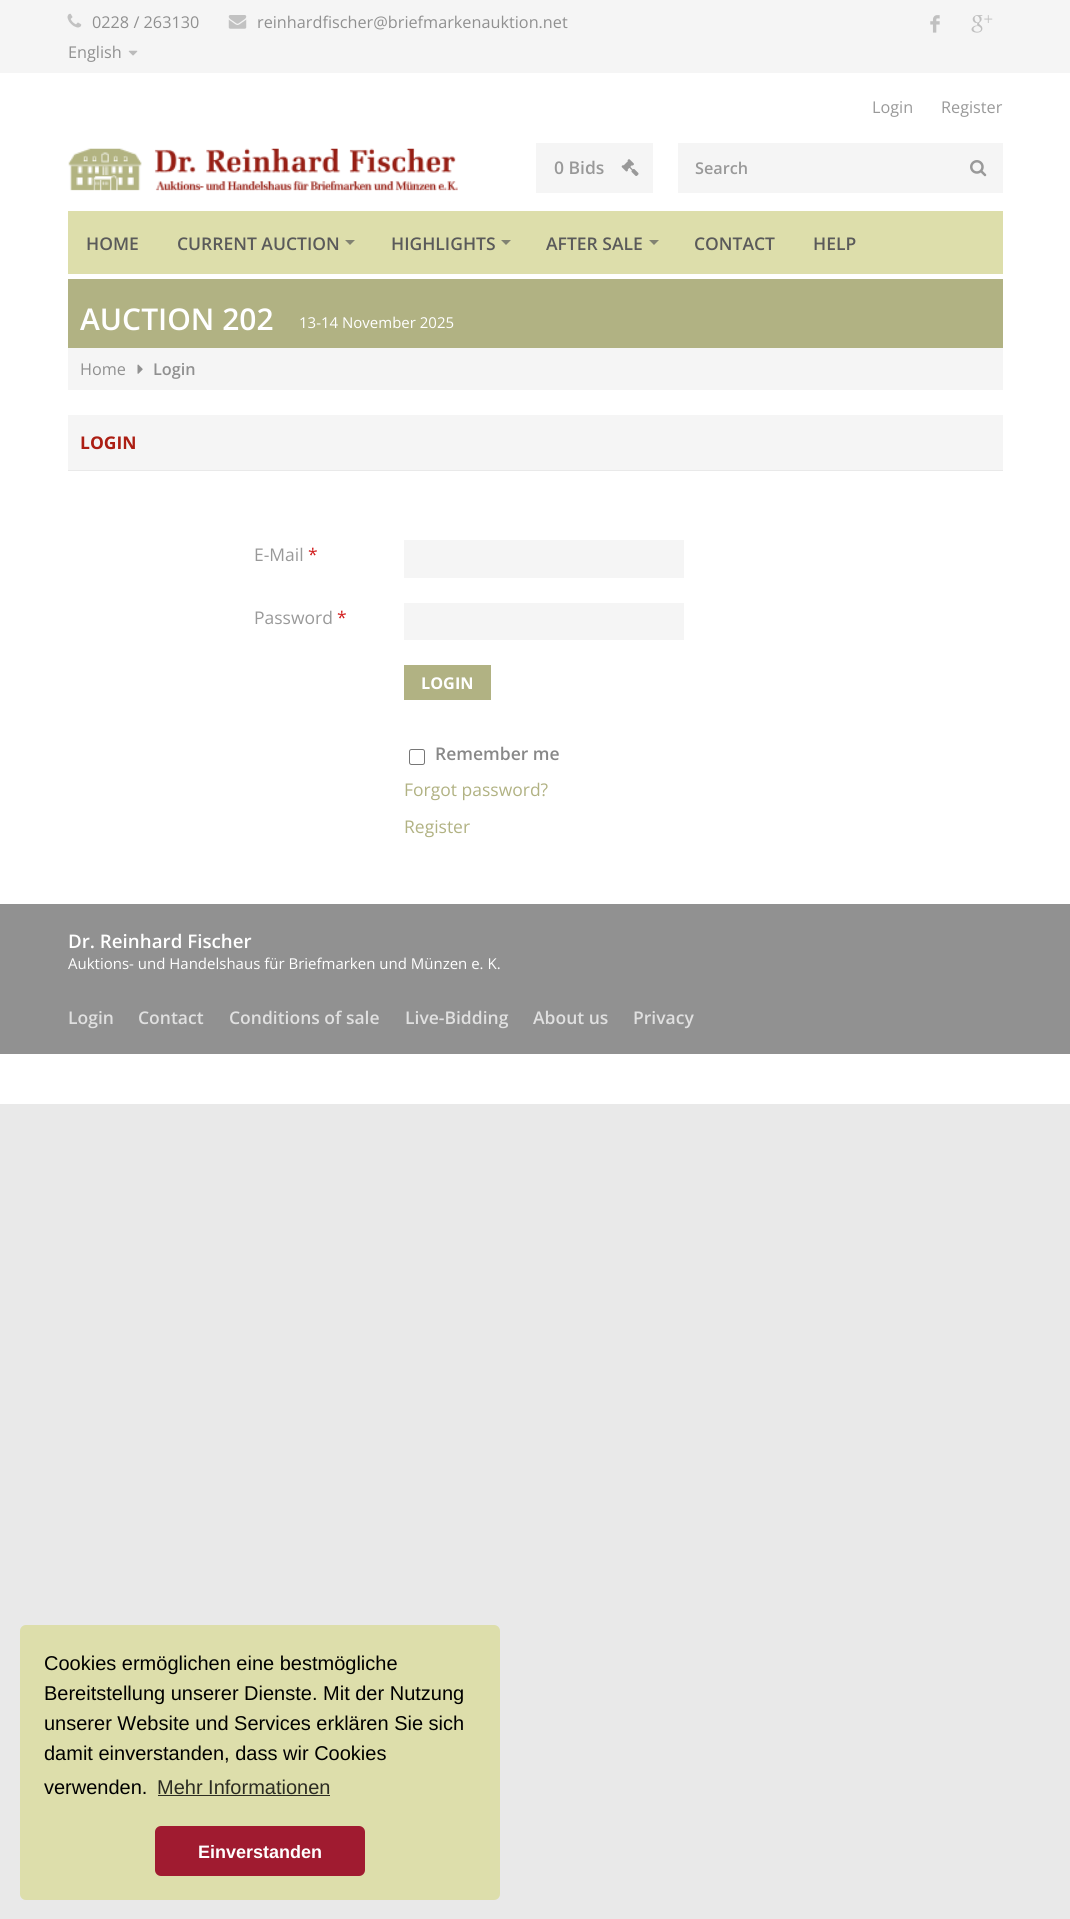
import math
import cairo

surface = cairo.ImageSurface(cairo.FORMAT_RGB24, 1070, 1919)
c = cairo.Context(surface)
options = cairo.FontOptions()
options.set_hint_metrics(cairo.HINT_METRICS_OFF)
options.set_hint_style(cairo.HINT_STYLE_NONE)
c.set_font_options(options)
c.set_miter_limit(4)
def C(code):
 c.set_source_rgb(*(v / 255 for v in bytes.fromhex(code[-6:])))
def F(family, size, italic, bold):
 c.select_font_face(family, cairo.FONT_SLANT_ITALIC if italic else cairo.FONT_SLANT_NORMAL, cairo.FONT_WEIGHT_BOLD if bold else cairo.FONT_WEIGHT_NORMAL)
 c.set_font_size(size)
def T(x, y, s):
 c.move_to(x, y)
 c.show_text(s)
def R(x, y, w, h):
 c.rectangle(x, y, w, h)
 c.fill()
def Q(x, y, w, h, r):
 c.new_sub_path()
 for i, (u, v) in enumerate([(x + w - r, y + h - r), (x + r, y + h - r), (x + r, y + r), (x + w - r, y + r)]):
  c.arc(u, v, r, i * math.pi / 2, (i + 1) * math.pi / 2)
 c.close_path()
def I(path, x, y, w, h):
 c.save()
 c.set_source_surface(cairo.ImageSurface.create_from_png(path), x, y)
 c.rectangle(x, y, w, h)
 c.fill()
 c.restore()
C('e9e9e9')
c.paint()
C('ffffff')
R(0,73,1070,1031)
C('f5f5f5')
R(0,0,1070,73)
I('1.png',67,13,15,15)
F('Open Sans',16.25,0,0)
C('909090')
T(92,28,'0228 / 263130')
I('2.png',228,15,19,14)
T(257,28,'reinhardfischer@briefmarkenauktion.net')
T(68,58,'English')
I('3.png',128,50,10,6)
I('4.png',930,15,10,18)
I('5.png',971,15,22,18)
C('999999')
T(872,113,'Login')
T(941,113,'Register')
I('6.png',68,148,390,43)
C('f5f5f5')
R(536,143,117,50)
F('Open Sans SemiBold',17.5,0,0)
C('999999')
T(554,174,'0 Bids')
I('7.png',621,159,18,17)
C('f5f5f5')
R(678,143,325,50)
F('Open Sans SemiBold',16.25,0,0)
C('999999')
T(695,174,'Search')
I('8.png',970,160,17,17)
C('dddeab')
R(68,211,935,63)
F('Open Sans SemiBold',17.5,0,0)
C('5a5a5a')
T(86,250,'HOME')
T(177,250,'CURRENT AUCTION')
C('818272')
c.new_path()
c.move_to(345,240)
c.line_to(355,240)
c.line_to(350,245)
c.close_path()
c.fill()
C('5a5a5a')
T(391,250,'HIGHLIGHTS')
C('818272')
c.new_path()
c.move_to(501,240)
c.line_to(511,240)
c.line_to(506,245)
c.close_path()
c.fill()
C('5a5a5a')
T(546,250,'AFTER SALE')
C('818272')
c.new_path()
c.move_to(649,240)
c.line_to(659,240)
c.line_to(654,245)
c.close_path()
c.fill()
C('5a5a5a')
T(694,250,'CONTACT')
T(813,250,'HELP')
C('b1b283')
R(68,279,935,69)
F('Open Sans SemiBold',30,0,0)
C('ffffff')
T(80,330,'AUCTION 202')
F('Open Sans',15,0,0)
T(299,328,'13-14 November 2025')
C('f5f5f5')
R(68,348,935,42)
F('Open Sans',16.25,0,0)
C('909090')
T(80,375,'Home')
I('9.png',137,364,6,10)
F('Open Sans SemiBold',16.25,0,0)
T(153,375,'Login')
C('f5f5f5')
R(68,415,935,55)
C('e9e9e9')
R(68,470,935,1)
F('Open Sans',17.5,0,1)
C('ac1e13')
T(80,449,'LOGIN')
F('Open Sans',17.5,0,0)
C('999999')
T(254,561,'E-Mail')
C('d11c1c')
T(308,561,'*')
C('f5f5f5')
R(404,540,280,38)
C('999999')
T(254,624,'Password')
C('d11c1c')
T(337,624,'*')
C('f5f5f5')
R(404,603,280,37)
C('b1b283')
R(404,665,87,35)
F('Open Sans',16.25,0,1)
C('ffffff')
T(421,689,'LOGIN')
Q(409.5,749.5,15,15,2)
C('767676')
c.set_line_width(1)
c.stroke()
F('Open Sans SemiBold',17.5,0,0)
C('888888')
T(435,760,'Remember me')
F('Open Sans',17.5,0,0)
C('b1b283')
T(404,796,'Forgot password?')
T(404,833,'Register')
C('919191')
R(0,904,1070,150)
F('Open Sans SemiBold',18.75,0,0)
C('ffffff')
T(68,948,'Dr. Reinhard Fischer')
F('Open Sans',15,0,0)
T(68,969,'Auktions- und Handelshaus für Briefmarken und Münzen e. K.')
F('Open Sans SemiBold',17.5,0,0)
C('e0e0e0')
T(68,1024,'Login')
T(138,1024,'Contact')
T(229,1024,'Conditions of sale')
T(405,1024,'Live-Bidding')
T(533,1024,'About us')
T(633,1024,'Privacy')
C('dddeab')
Q(20,1625,480,275,6)
c.fill()
F('Liberation Sans',20,0,0)
C('000000')
T(44,1670,'Cookies ermöglichen eine bestmögliche')
T(44,1700,'Bereitstellung unserer Dienste. Mit der Nutzung')
T(44,1730,'unserer Website und Services erklären Sie sich')
T(44,1760,'damit einverstanden, dass wir Cookies')
T(44,1794,'verwenden.')
C('2c2c22')
T(157,1794,'Mehr Informationen')
R(158,1795,172,1)
C('a01b30')
Q(155,1826,210,50,6)
c.fill()
F('Liberation Sans',18,0,1)
C('ffffff')
T(198,1858,'Einverstanden')
surface.write_to_png('o.png')
